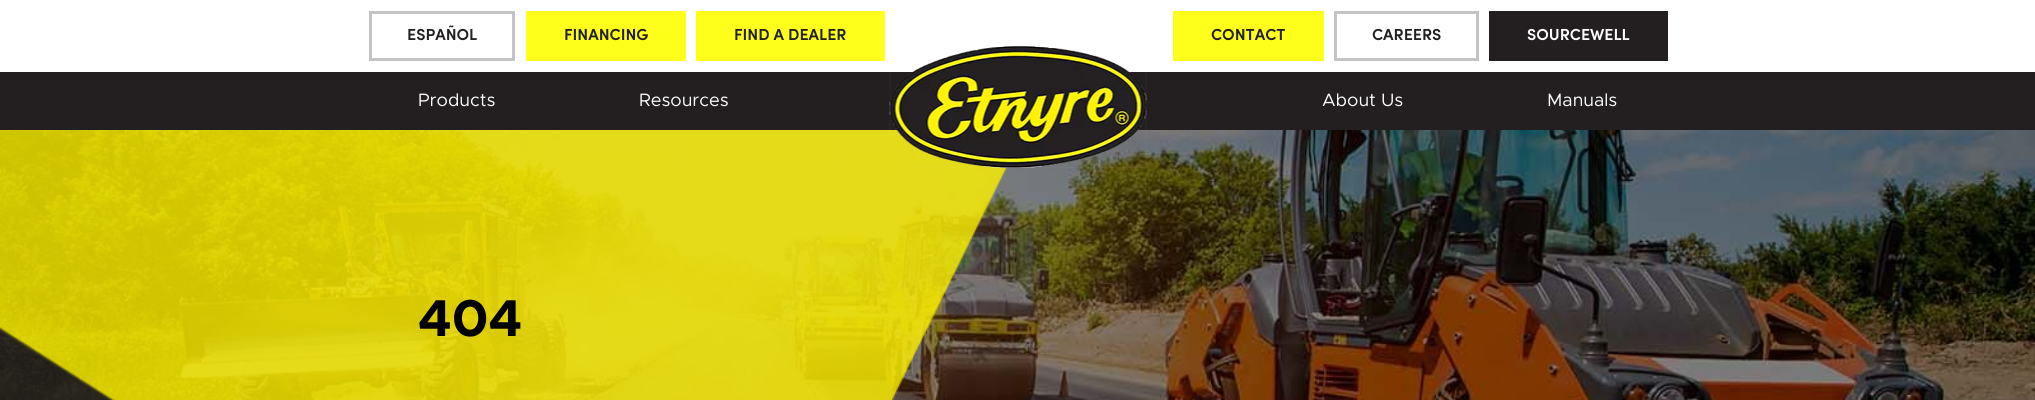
import math
import cairo

surface = cairo.ImageSurface(cairo.FORMAT_RGB24, 2035, 400)
c = cairo.Context(surface)
options = cairo.FontOptions()
options.set_hint_metrics(cairo.HINT_METRICS_OFF)
options.set_hint_style(cairo.HINT_STYLE_NONE)
c.set_font_options(options)
c.set_miter_limit(4)
def C(code):
 c.set_source_rgb(*(v / 255 for v in bytes.fromhex(code[-6:])))
def F(family, size, italic, bold):
 c.select_font_face(family, cairo.FONT_SLANT_ITALIC if italic else cairo.FONT_SLANT_NORMAL, cairo.FONT_WEIGHT_BOLD if bold else cairo.FONT_WEIGHT_NORMAL)
 c.set_font_size(size)
def T(x, y, s):
 c.move_to(x, y)
 c.show_text(s)
def R(x, y, w, h):
 c.rectangle(x, y, w, h)
 c.fill()
def I(path, x, y, w, h):
 c.save()
 c.set_source_surface(cairo.ImageSurface.create_from_png(path), x, y)
 c.rectangle(x, y, w, h)
 c.fill()
 c.restore()
C('ffffff')
c.paint()
c.rectangle(370.5,12.5,143,47)
C('c4c4c4')
c.set_line_width(3)
c.stroke()
F('Sofia SemiBold',16,0,0)
C('232020')
T(407,40,'ESPAÑOL')
C('ffff1c')
R(526,11,160,50)
C('232020')
T(564,40,'FINANCING')
C('ffff1c')
R(696,11,189,50)
C('232020')
T(734,40,'FIND A DEALER')
C('ffff1c')
R(1173,11,151,50)
C('232020')
T(1211,40,'CONTACT')
c.rectangle(1335.5,12.5,142,47)
C('c4c4c4')
c.stroke()
C('232020')
T(1372,40,'CAREERS')
C('231f20')
R(1489,11,179,50)
C('ffffff')
T(1527,40,'SOURCEWELL')
C('231f20')
R(0,72,2035,58)
I('2.png',0,130,2035,270)
I('3.png',0,130,1008,270)
I('1.png',889,46,258,122)
F('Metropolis',18,0,0)
C('ffffff')
T(418,106,'Products')
T(639,106,'Resources')
T(1322,106,'About Us')
T(1547,106,'Manuals')
F('Metropolis',52,0,1)
C('000000')
T(418,336,'404')
surface.write_to_png('o.png')
